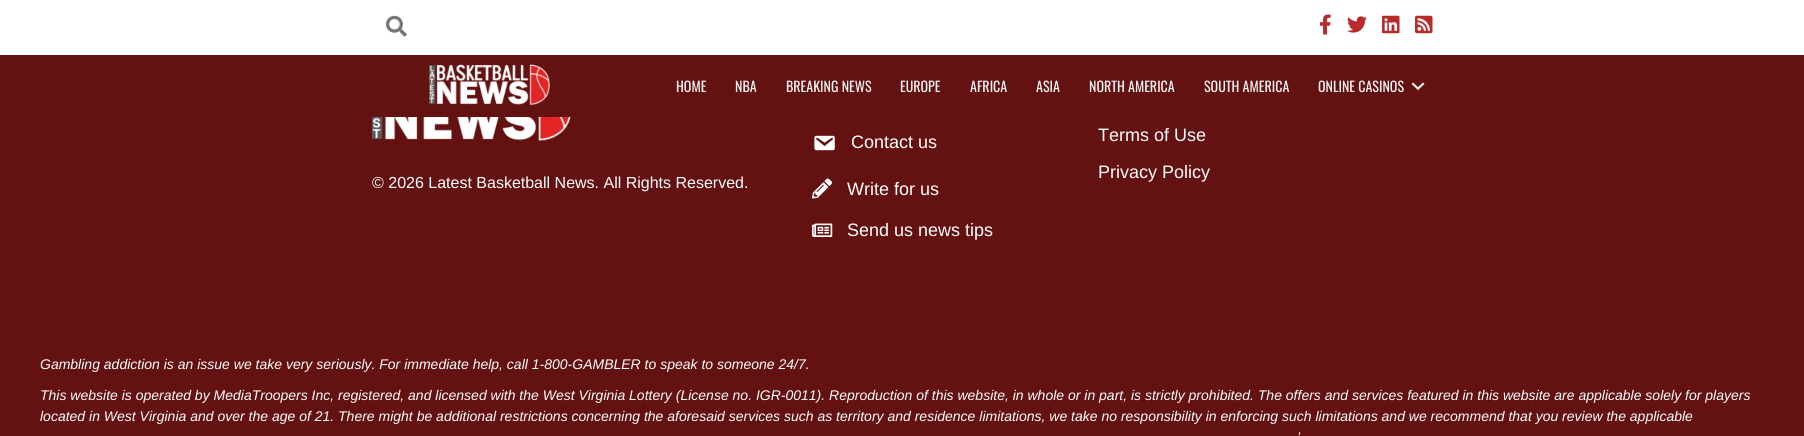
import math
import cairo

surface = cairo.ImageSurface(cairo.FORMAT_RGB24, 1804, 436)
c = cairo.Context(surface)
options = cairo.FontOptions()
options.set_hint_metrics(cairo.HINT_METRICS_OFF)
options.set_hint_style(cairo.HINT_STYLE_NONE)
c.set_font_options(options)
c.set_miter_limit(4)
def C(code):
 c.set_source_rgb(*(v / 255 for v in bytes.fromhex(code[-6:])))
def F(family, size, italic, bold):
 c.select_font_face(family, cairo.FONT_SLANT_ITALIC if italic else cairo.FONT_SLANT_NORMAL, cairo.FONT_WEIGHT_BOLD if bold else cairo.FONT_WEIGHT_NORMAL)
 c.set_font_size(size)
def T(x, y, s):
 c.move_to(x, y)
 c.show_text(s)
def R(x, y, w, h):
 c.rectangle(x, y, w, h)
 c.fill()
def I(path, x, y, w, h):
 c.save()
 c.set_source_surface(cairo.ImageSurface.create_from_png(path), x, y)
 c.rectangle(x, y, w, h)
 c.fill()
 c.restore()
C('631111')
c.paint()
C('ffffff')
R(0,0,1804,55)
I('1.png',386,15,21,22)
I('2.png',1319,14,12,21)
I('3.png',1347,16,20,17)
I('4.png',1382,15,18,19)
I('5.png',1415,15,18,19)
I('6.png',429,64,121,42)
F('Oswald',14,0,0)
C('f5f5f5')
T(676,92,'HOME')
T(735,92,'NBA')
T(786,92,'BREAKING NEWS')
T(900,92,'EUROPE')
T(970,92,'AFRICA')
T(1036,92,'ASIA')
T(1089,92,'NORTH AMERICA')
T(1204,92,'SOUTH AMERICA')
T(1318,92,'ONLINE CASINOS')
c.new_path()
c.move_to(1423,82.5)
c.line_to(1424.5,84)
c.line_to(1418,90)
c.line_to(1416.5,88.5)
c.close_path()
c.fill()
c.new_path()
c.move_to(1413,82.5)
c.line_to(1419.5,88.5)
c.line_to(1418,90)
c.line_to(1411.5,84)
c.close_path()
c.fill()
I('7.png',372,117,199,24)
F('Liberation Sans',16,0,0)
C('ffffff')
T(372,188,'© 2026 Latest Basketball News. All Rights Reserved.')
I('8.png',814,135,21,16)
F('Liberation Sans',18,0,0)
T(851,148,'Contact us')
I('9.png',812,178,20,21)
T(847,195,'Write for us')
I('10.png',812,223,21,14)
T(847,236,'Send us news tips')
T(1098,141,'Terms of Use')
T(1098,178,'Privacy Policy')
F('Liberation Sans',14,1,0)
T(40,369,'Gambling addiction is an issue we take very seriously. For immediate help, call 1-800-GAMBLER to speak to someone 24/7.')
T(40,400,'This website is operated by MediaTroopers Inc, registered, and licensed with the West Virginia Lottery (License no. IGR-0011). Reproduction of this website, in whole or in part, is strictly prohibited. The offers and services featured in this website are applicable solely for players')
T(40,421,'located in West Virginia and over the age of 21. There might be additional restrictions concerning the aforesaid services such as territory and residence limitations, we take no responsibility in enforcing such limitations and we recommend that you review the applicable')
T(1297,442,'’')
surface.write_to_png('o.png')
